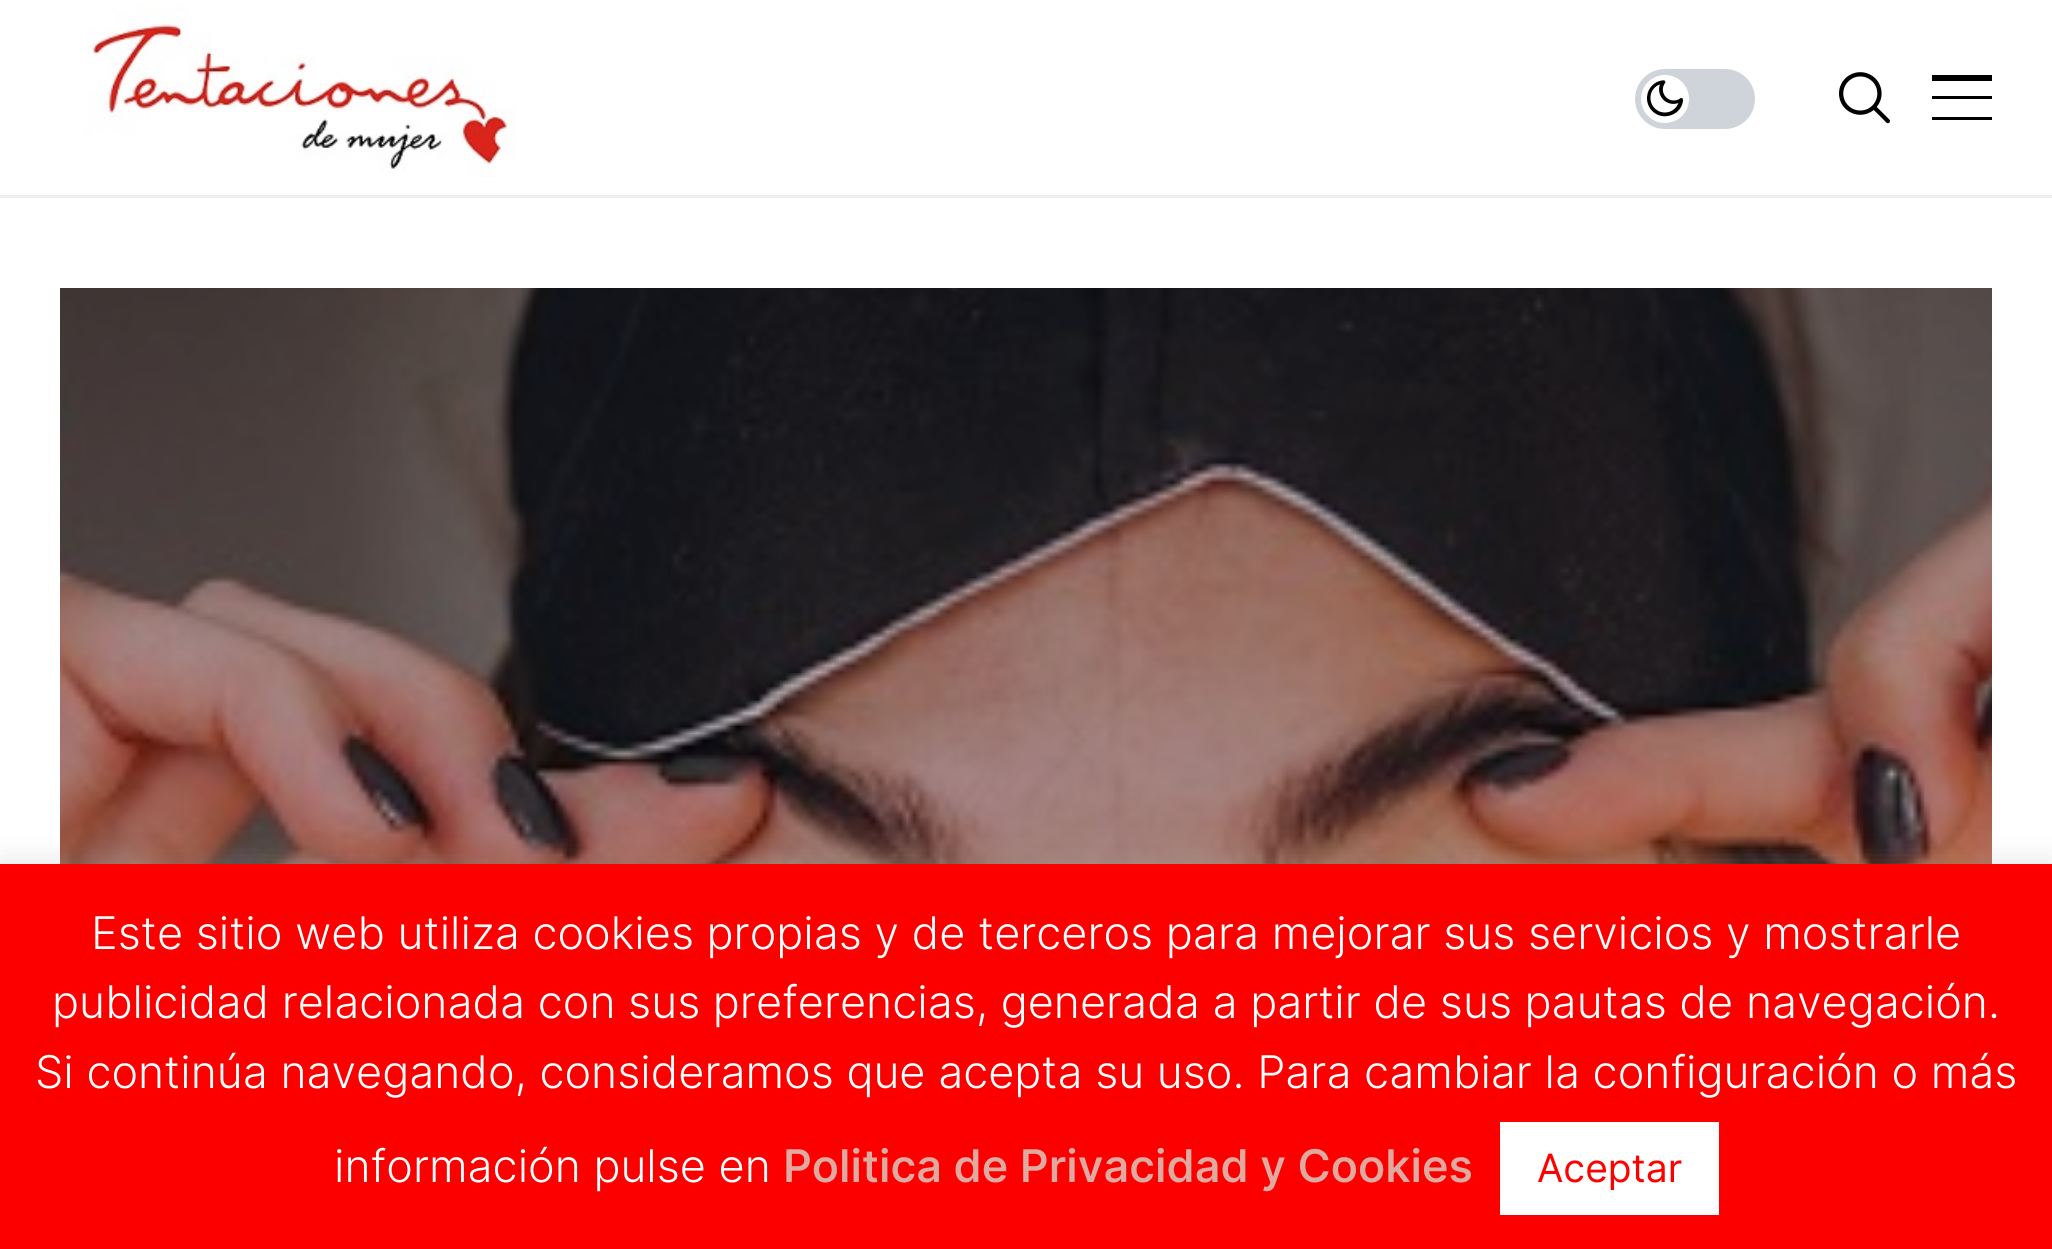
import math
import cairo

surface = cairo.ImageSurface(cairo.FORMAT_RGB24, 2052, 1249)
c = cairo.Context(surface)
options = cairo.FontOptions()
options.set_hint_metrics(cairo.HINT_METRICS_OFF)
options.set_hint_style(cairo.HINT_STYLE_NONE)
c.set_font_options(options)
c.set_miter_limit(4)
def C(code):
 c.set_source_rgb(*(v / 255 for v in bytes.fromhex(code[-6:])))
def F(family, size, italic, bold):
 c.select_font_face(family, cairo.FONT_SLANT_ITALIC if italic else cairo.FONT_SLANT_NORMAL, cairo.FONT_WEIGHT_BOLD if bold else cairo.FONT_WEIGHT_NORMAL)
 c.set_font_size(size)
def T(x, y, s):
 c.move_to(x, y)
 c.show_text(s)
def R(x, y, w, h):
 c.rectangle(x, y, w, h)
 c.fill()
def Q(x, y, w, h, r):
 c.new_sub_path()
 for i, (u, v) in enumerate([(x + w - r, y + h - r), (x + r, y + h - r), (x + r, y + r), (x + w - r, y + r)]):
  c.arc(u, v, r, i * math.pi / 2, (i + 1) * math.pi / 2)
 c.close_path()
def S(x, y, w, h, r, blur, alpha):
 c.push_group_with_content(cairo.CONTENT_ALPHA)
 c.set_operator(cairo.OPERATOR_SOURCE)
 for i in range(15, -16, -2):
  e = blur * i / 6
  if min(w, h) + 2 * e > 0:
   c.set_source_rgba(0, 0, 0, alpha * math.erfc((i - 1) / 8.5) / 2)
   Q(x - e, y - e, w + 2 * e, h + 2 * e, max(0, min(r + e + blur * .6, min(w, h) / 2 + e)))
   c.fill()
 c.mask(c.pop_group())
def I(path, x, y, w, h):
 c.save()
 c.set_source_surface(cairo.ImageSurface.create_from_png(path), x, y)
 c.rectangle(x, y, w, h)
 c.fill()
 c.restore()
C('ffffff')
c.paint()
C('eeeeee')
R(0,195,2052,3)
I('1.png',86,6,431,172)
C('ced4da')
Q(1635,69,120,60,30)
c.fill()
C('ffffff')
c.arc(1665,99,24,0,2 * math.pi)
c.fill()
I('2.png',1647,80,36,37)
I('3.png',1839,72,51,52)
C('000000')
R(1932,75,60,6)
R(1932,96,60,3)
R(1932,117,60,3)
I('4.png',60,288,1932,576)
C('acabab')
S(0,861,2052,387,0,15,.3)
C('fc0000')
R(0,864,2052,385)
F('Inter Light',45,0,0)
C('ffffff')
T(91,949,'Este sitio web utiliza cookies propias y de terceros para mejorar sus servicios y mostrarle')
T(52,1018,'publicidad relacionada con sus preferencias, generada a partir de sus pautas de navegación.')
T(35,1088,'Si continúa navegando, consideramos que acepta su uso. Para cambiar la configuración o más')
T(334,1182,'información pulse en')
F('Inter Medium',45,0,0)
C('e0aaa1')
T(783,1182,'Politica de Privacidad y Cookies')
C('ffffff')
R(1500,1122,219,93)
F('Inter',39,0,0)
C('ff0000')
T(1537,1182,'Aceptar')
surface.write_to_png('o.png')
